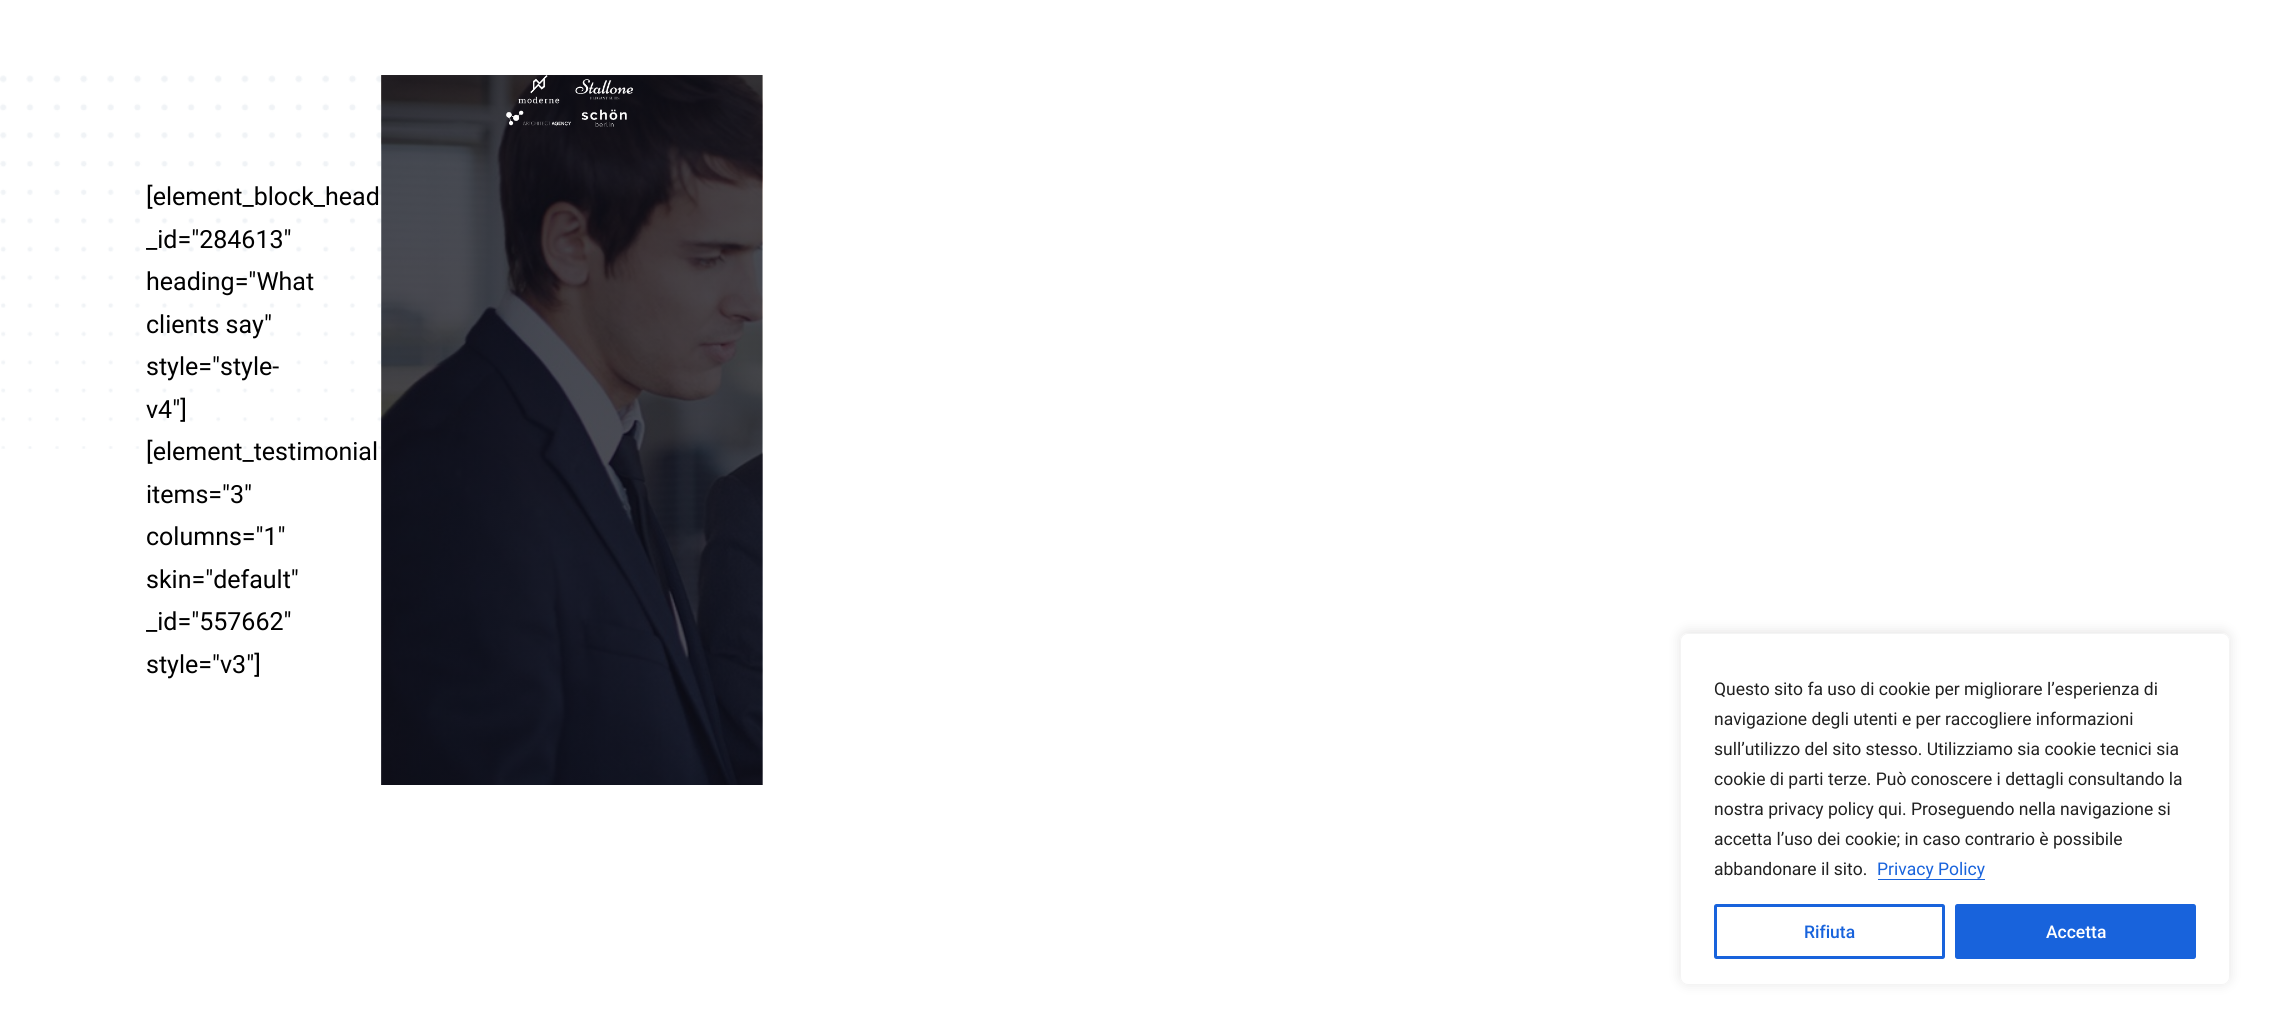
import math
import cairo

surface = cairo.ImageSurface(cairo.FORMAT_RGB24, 2279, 1034)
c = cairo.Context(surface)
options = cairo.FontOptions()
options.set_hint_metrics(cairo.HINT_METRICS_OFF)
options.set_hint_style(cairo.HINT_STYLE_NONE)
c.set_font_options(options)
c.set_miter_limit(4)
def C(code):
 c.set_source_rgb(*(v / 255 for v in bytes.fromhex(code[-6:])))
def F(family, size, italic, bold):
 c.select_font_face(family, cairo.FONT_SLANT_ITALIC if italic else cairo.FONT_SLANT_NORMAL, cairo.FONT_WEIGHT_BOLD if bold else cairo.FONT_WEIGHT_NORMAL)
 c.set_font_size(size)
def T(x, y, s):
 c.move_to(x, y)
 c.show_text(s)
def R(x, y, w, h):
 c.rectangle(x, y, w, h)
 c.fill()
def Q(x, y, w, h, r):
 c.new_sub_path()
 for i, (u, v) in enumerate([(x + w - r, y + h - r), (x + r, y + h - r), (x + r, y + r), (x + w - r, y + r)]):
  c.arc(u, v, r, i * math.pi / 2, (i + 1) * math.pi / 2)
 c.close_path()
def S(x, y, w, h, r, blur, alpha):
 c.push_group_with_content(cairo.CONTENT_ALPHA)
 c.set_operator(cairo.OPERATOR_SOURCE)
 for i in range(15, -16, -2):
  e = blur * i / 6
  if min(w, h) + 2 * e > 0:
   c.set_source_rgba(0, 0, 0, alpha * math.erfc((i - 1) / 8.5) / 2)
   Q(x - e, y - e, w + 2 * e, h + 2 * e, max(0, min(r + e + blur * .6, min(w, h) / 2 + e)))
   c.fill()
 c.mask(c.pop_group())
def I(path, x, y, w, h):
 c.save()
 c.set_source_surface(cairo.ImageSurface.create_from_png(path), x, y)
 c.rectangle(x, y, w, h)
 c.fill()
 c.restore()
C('ffffff')
c.paint()
I('1.png',0,75,382,374)
F('Roboto',25,0,0)
C('000000')
T(146,205,'[element_block_head')
T(146,248,'_id="284613"')
T(146,290,'heading="What')
T(146,333,'clients say"')
T(146,375,'style="style-')
T(146,418,'v4"]')
T(146,460,'[element_testimonial')
T(146,503,'items="3"')
T(146,545,'columns="1"')
T(146,588,'skin="default"')
T(146,630,'_id="557662"')
T(146,673,'style="v3"]')
I('2.png',381,75,382,710)
I('3.png',518,75,42,29)
I('4.png',575,79,58,21)
I('5.png',506,110,65,16)
I('6.png',581,109,46,18)
c.save()
c.set_fill_rule(cairo.FILL_RULE_EVEN_ODD)
c.new_path()
c.move_to(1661,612)
c.line_to(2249,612)
c.line_to(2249,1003)
c.line_to(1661,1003)
c.close_path()
c.move_to(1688,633)
c.line_to(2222,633)
c.curve_to(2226.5,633,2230,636.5,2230,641)
c.line_to(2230,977)
c.curve_to(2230,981.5,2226.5,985,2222,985)
c.line_to(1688,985)
c.curve_to(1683.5,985,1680,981.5,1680,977)
c.line_to(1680,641)
c.curve_to(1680,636.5,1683.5,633,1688,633)
c.close_path()
c.clip()
C('acabab')
S(1680,631,550,353,8,6,.3)
c.restore()
Q(1680.5,633.5,549,351,7.5)
C('f4f4f4')
c.set_line_width(1)
c.stroke()
F('Roboto',17.5,0,0)
C('212121')
T(1714,695,'Questo sito fa uso di cookie per migliorare l’esperienza di')
T(1714,725,'navigazione degli utenti e per raccogliere informazioni')
T(1714,755,'sull’utilizzo del sito stesso. Utilizziamo sia cookie tecnici sia')
T(1714,785,'cookie di parti terze. Può conoscere i dettagli consultando la')
T(1714,815,'nostra privacy policy qui. Proseguendo nella navigazione si')
T(1714,845,'accetta l’uso dei cookie; in caso contrario è possibile')
T(1714,875,'abbandonare il sito.')
C('1863dc')
T(1877,875,'Privacy Policy')
R(1878,879,107,1)
Q(1715.5,905.5,228,52,1)
c.set_line_width(3)
c.stroke()
F('Roboto Medium',17.5,0,0)
T(1804,938,'Rifiuta')
Q(1956.5,905.5,238,52,1)
c.fill_preserve()
c.stroke()
C('ffffff')
T(2046,938,'Accetta')
surface.write_to_png('o.png')
